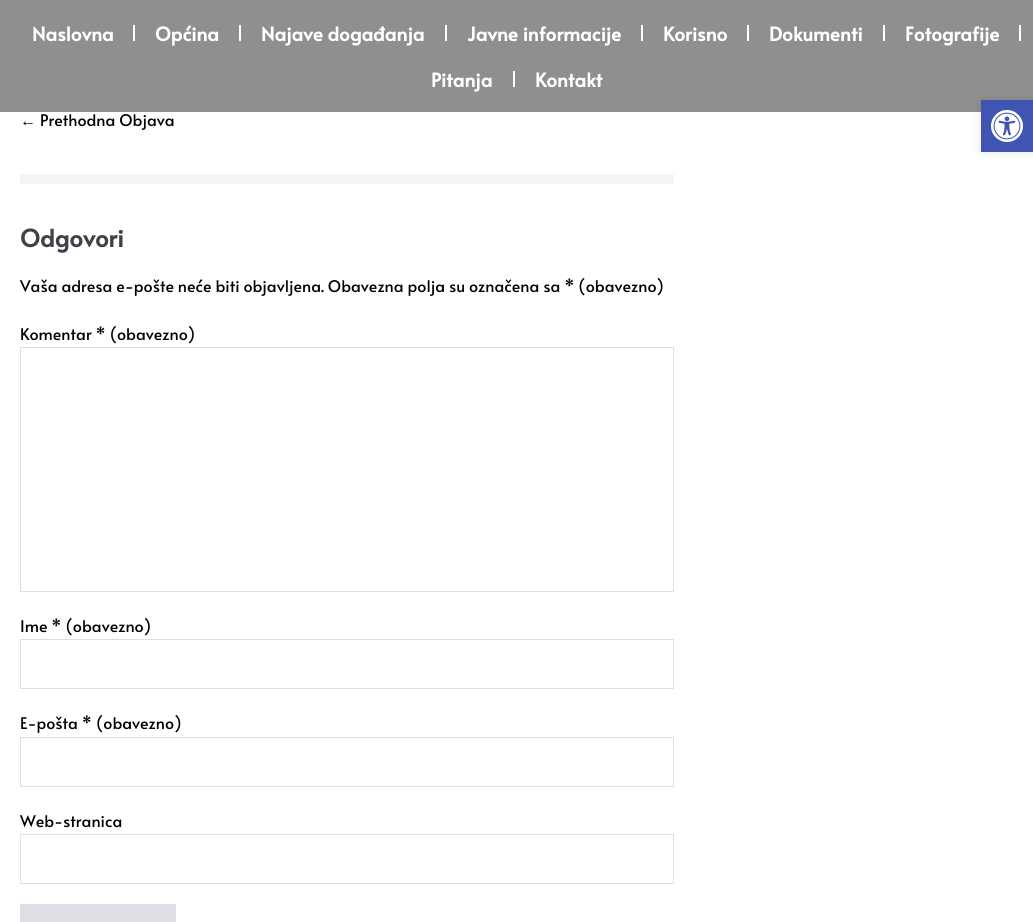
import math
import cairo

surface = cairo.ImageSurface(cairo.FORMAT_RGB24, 1033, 922)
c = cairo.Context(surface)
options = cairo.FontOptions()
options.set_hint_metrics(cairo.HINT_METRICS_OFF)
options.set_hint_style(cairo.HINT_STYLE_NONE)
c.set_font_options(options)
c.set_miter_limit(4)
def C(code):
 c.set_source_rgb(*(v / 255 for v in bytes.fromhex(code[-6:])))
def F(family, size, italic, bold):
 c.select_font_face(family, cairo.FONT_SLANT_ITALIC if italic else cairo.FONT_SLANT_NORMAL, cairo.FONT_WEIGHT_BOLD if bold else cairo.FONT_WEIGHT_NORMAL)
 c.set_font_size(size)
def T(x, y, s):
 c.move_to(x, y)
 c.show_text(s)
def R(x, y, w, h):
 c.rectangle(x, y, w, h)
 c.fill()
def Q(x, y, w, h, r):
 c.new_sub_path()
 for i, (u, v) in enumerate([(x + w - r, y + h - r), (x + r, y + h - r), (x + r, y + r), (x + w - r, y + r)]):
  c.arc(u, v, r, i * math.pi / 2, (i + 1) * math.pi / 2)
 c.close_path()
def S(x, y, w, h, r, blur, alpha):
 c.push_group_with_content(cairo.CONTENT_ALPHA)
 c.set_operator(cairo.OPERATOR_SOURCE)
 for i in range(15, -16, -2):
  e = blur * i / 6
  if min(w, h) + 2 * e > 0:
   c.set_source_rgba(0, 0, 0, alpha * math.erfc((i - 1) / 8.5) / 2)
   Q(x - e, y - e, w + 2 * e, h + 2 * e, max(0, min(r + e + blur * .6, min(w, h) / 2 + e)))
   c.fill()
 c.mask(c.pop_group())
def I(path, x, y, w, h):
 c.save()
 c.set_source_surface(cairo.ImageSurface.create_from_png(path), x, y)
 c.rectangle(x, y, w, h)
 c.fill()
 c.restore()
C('ffffff')
c.paint()
C('8f8f8f')
R(0,0,1033,112)
F('Alata',19,0,1)
C('ffffff')
T(32,41,'Naslovna')
R(133,25,2,16)
T(155,41,'Općina')
R(239,25,2,16)
T(261,41,'Najave događanja')
R(445,25,2,16)
T(467,41,'Javne informacije')
R(641,25,2,16)
T(663,41,'Korisno')
R(747,25,2,16)
T(769,41,'Dokumenti')
R(883,25,2,16)
T(905,41,'Fotografije')
R(1019,25,2,16)
T(431,87,'Pitanja')
R(513,71,2,16)
T(535,87,'Kontakt')
F('Liberation Sans',16,0,0)
C('000000')
T(20,126,'←')
F('Alata',16,0,0)
T(40,126,'Prethodna Objava')
C('f5f5f7')
R(20,174,654,10)
F('Alata',24,0,1)
C('3e4349')
T(20,247,'Odgovori')
F('Alata',16,0,0)
C('000000')
T(20,292,'Vaša adresa e-pošte neće biti objavljena. Obavezna polja su označena sa * (obavezno)')
T(20,340,'Komentar * (obavezno)')
c.rectangle(20.5,347.5,653,244)
C('dedee5')
c.set_line_width(1)
c.stroke()
C('000000')
T(20,632,'Ime * (obavezno)')
c.rectangle(20.5,639.5,653,49)
C('dedee5')
c.stroke()
C('000000')
T(20,729,'E-pošta * (obavezno)')
c.rectangle(20.5,737.5,653,49)
C('dedee5')
c.stroke()
C('000000')
T(20,827,'Web-stranica')
c.rectangle(20.5,834.5,653,49)
C('dedee5')
c.stroke()
R(20,904,156,18)
C('000000')
S(981,100,52,52,0,5,.1)
C('4054b2')
R(981,100,52,52)
I('1.png',991,110,32,32)
surface.write_to_png('o.png')
